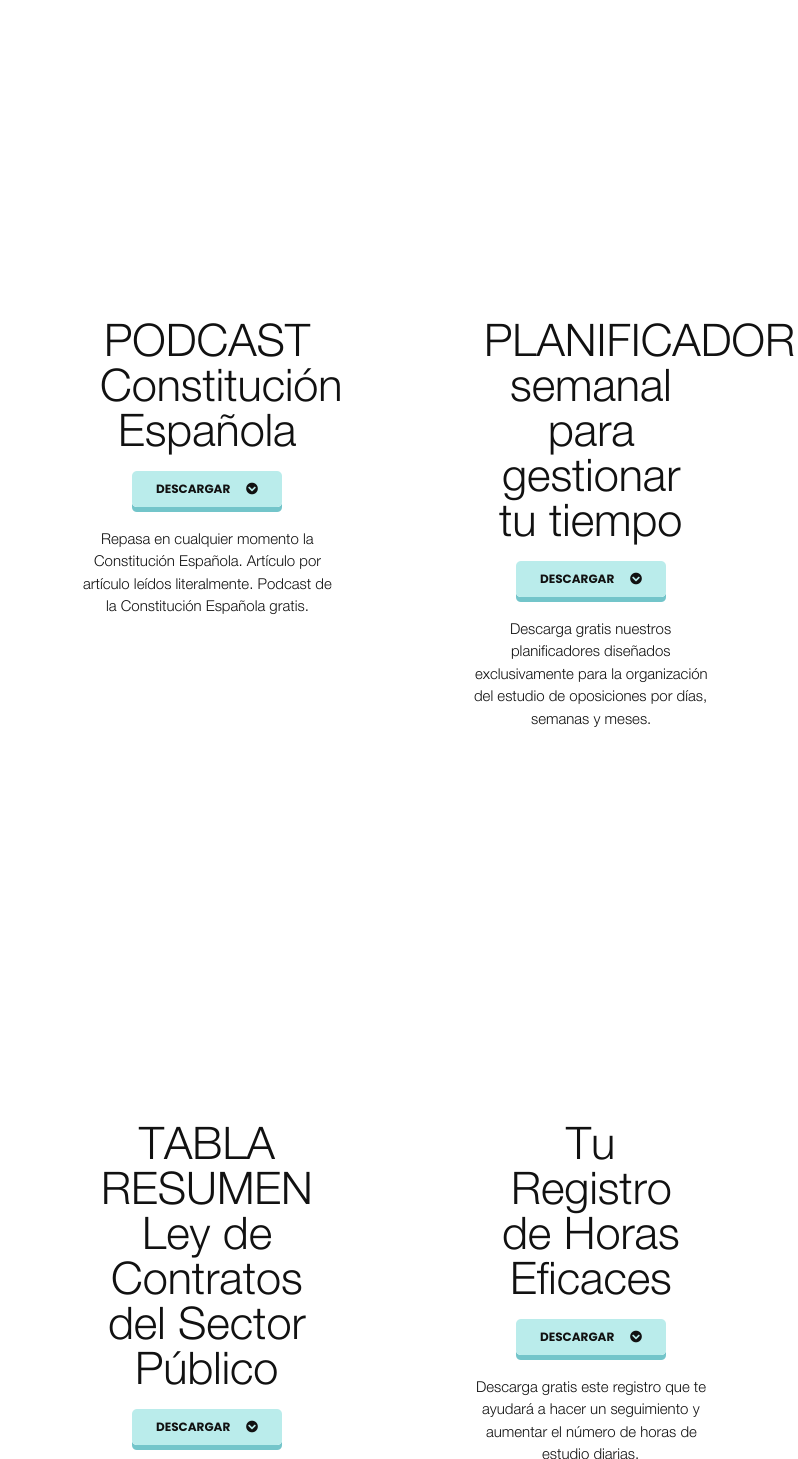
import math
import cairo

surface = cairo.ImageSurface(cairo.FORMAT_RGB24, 798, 1459)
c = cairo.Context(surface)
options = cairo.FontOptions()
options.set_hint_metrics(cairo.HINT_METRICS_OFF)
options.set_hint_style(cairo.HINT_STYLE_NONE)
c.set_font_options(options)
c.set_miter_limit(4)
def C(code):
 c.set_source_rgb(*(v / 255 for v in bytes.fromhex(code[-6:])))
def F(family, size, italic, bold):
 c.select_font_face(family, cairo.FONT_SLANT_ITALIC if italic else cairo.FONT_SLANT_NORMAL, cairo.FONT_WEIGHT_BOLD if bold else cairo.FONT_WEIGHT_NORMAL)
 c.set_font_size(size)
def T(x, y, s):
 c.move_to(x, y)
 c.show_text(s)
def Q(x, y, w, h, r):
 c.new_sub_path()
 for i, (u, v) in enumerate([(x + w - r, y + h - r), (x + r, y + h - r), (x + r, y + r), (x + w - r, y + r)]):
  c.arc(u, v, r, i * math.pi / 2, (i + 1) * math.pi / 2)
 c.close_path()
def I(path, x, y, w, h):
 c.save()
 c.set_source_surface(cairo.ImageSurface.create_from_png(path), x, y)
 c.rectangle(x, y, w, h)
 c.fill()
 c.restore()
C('ffffff')
c.paint()
F('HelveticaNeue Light',45,0,0)
C('111111')
T(104,356,'PODCAST')
T(100,401,'Constitución')
T(118,446,'Española')
C('73c5ca')
c.new_path()
c.move_to(132,502)
c.line_to(132,507)
c.curve_to(132,510,134,512,137,512)
c.line_to(277,512)
c.curve_to(280,512,282,510,282,507)
c.line_to(282,502)
c.curve_to(282,505,280,507,277,507)
c.line_to(137,507)
c.curve_to(134,507,132,505,132,502)
c.close_path()
c.fill()
C('baeceb')
Q(132,471,150,36,5)
c.fill()
F('Poppins',12,0,1)
C('111111')
T(156,493,'DESCARGAR')
I('1.png',246,482,12,13)
F('HelveticaNeue Light',15,0,0)
T(101,544,'Repasa en cualquier momento la')
T(94,566,'Constitución Española. Artículo por')
T(83,589,'artículo leídos literalmente. Podcast de')
T(106,611,'la Constitución Española gratis.')
F('HelveticaNeue Light',45,0,0)
T(484,356,'PLANIFICADOR')
T(510,401,'semanal')
T(548,446,'para')
T(502,491,'gestionar')
T(499,536,'tu tiempo')
C('73c5ca')
c.new_path()
c.move_to(516,592)
c.line_to(516,597)
c.curve_to(516,600,518,602,521,602)
c.line_to(661,602)
c.curve_to(664,602,666,600,666,597)
c.line_to(666,592)
c.curve_to(666,595,664,597,661,597)
c.line_to(521,597)
c.curve_to(518,597,516,595,516,592)
c.close_path()
c.fill()
C('baeceb')
Q(516,561,150,36,5)
c.fill()
F('Poppins',12,0,1)
C('111111')
T(540,583,'DESCARGAR')
I('1.png',630,572,12,13)
F('HelveticaNeue Light',15,0,0)
T(510,634,'Descarga gratis nuestros')
T(511,656,'planificadores diseñados')
T(475,679,'exclusivamente para la organización')
T(474,701,'del estudio de oposiciones por días,')
T(531,724,'semanas y meses.')
F('HelveticaNeue Light',45,0,0)
T(139,1159,'TABLA')
T(101,1204,'RESUMEN')
T(142,1249,'Ley de')
T(111,1294,'Contratos')
T(108,1339,'del Sector')
T(135,1384,'Público')
C('73c5ca')
c.new_path()
c.move_to(132,1440)
c.line_to(132,1445)
c.curve_to(132,1448,134,1450,137,1450)
c.line_to(277,1450)
c.curve_to(280,1450,282,1448,282,1445)
c.line_to(282,1440)
c.curve_to(282,1443,280,1445,277,1445)
c.line_to(137,1445)
c.curve_to(134,1445,132,1443,132,1440)
c.close_path()
c.fill()
C('baeceb')
Q(132,1409,150,36,5)
c.fill()
F('Poppins',12,0,1)
C('111111')
T(156,1431,'DESCARGAR')
I('1.png',246,1420,12,13)
F('HelveticaNeue Light',45,0,0)
T(566,1159,'Tu')
T(511,1204,'Registro')
T(502,1249,'de Horas')
T(510,1294,'Eficaces')
C('73c5ca')
c.new_path()
c.move_to(516,1350)
c.line_to(516,1355)
c.curve_to(516,1358,518,1360,521,1360)
c.line_to(661,1360)
c.curve_to(664,1360,666,1358,666,1355)
c.line_to(666,1350)
c.curve_to(666,1353,664,1355,661,1355)
c.line_to(521,1355)
c.curve_to(518,1355,516,1353,516,1350)
c.close_path()
c.fill()
C('baeceb')
Q(516,1319,150,36,5)
c.fill()
F('Poppins',12,0,1)
C('111111')
T(540,1341,'DESCARGAR')
I('1.png',630,1330,12,13)
F('HelveticaNeue Light',15,0,0)
T(476,1392,'Descarga gratis este registro que te')
T(482,1414,'ayudará a hacer un seguimiento y')
T(486,1437,'aumentar el número de horas de')
T(542,1459,'estudio diarias.')
surface.write_to_png('o.png')
